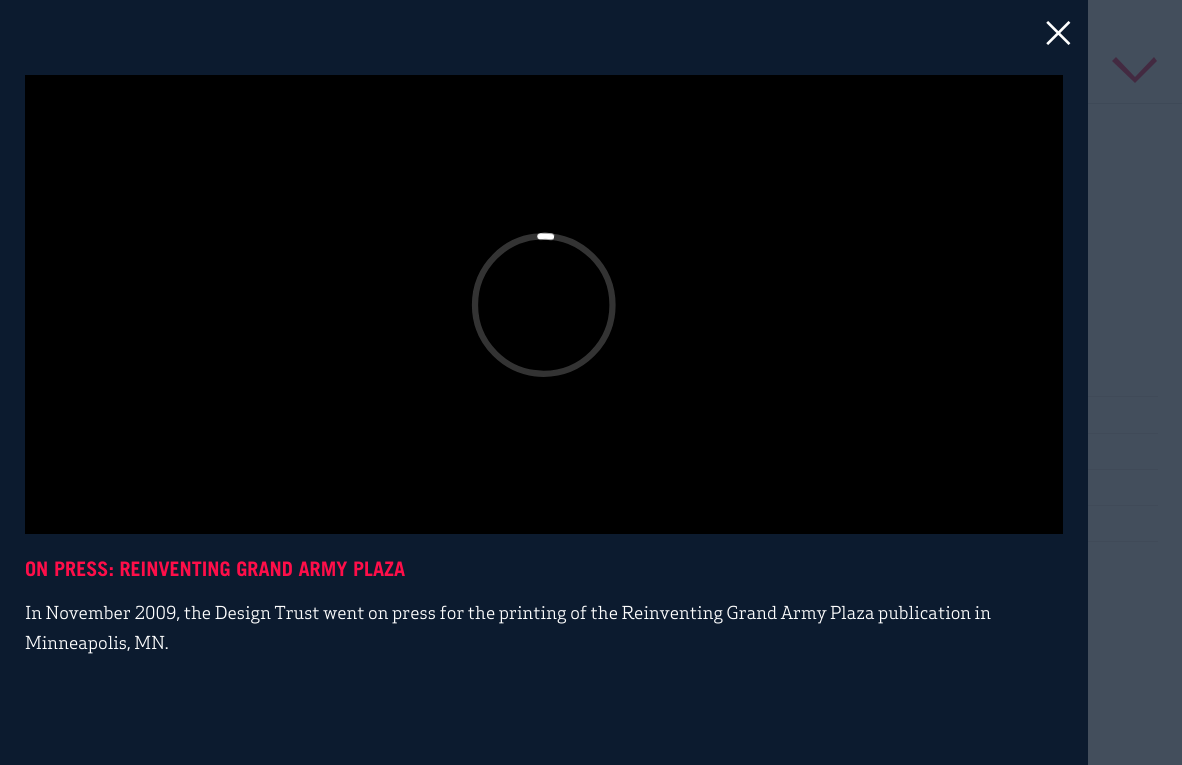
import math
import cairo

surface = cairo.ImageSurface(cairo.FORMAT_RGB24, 1182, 765)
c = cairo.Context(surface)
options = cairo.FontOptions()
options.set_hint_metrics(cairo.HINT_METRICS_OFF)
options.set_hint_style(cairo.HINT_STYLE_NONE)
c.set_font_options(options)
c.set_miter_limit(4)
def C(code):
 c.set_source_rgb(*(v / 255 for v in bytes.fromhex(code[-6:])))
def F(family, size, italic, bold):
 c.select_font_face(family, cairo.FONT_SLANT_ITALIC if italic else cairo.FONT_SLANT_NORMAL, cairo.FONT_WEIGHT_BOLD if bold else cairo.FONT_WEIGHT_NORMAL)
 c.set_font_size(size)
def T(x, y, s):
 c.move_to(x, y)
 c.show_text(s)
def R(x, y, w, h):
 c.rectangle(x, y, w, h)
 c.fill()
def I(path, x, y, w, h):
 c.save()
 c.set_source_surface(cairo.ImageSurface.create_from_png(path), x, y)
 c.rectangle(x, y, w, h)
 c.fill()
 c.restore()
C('434e5c')
c.paint()
C('3e4957')
R(1088,103,94,1)
C('432a41')
c.new_path()
c.move_to(1135,77)
c.line_to(1154,57)
c.line_to(1157,61)
c.line_to(1135,83)
c.line_to(1112,61)
c.line_to(1116,57)
c.close_path()
c.fill()
C('404a58')
R(1088,396,70,1)
R(1088,433,70,1)
R(1088,469,70,1)
R(1088,505,70,1)
R(1088,541,70,1)
C('0c1b2f')
R(0,0,1088,765)
I('1.png',1046,21,25,24)
I('2.png',25,75,1038,459)
F('Trade Gothic',20,0,1)
C('ff0e49')
T(25,576,'ON PRESS: REINVENTING GRAND ARMY PLAZA')
F('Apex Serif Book',17.5,0,0)
C('ffffff')
T(25,619,'In November 2009, the Design Trust went on press for the printing of the Reinventing Grand Army Plaza publication in')
T(25,649,'Minneapolis, MN.')
surface.write_to_png('o.png')
